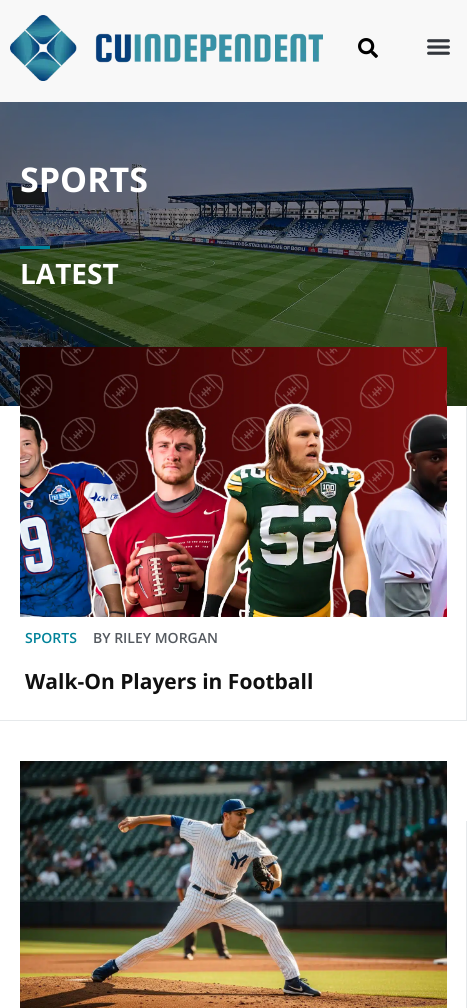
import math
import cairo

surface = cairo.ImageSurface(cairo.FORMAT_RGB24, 467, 1008)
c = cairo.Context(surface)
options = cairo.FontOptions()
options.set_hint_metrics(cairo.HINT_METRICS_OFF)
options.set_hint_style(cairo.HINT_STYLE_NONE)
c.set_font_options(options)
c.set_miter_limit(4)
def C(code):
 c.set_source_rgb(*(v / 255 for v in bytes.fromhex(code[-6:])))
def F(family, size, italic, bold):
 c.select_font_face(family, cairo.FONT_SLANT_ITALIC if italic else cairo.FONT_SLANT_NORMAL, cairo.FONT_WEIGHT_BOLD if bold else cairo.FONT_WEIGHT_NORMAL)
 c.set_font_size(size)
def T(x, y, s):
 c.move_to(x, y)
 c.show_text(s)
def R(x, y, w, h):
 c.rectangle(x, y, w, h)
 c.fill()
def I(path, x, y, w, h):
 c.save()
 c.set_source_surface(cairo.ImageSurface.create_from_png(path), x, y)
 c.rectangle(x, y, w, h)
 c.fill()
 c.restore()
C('ffffff')
c.paint()
C('f8f8f8')
R(0,0,467,102)
I('1.png',10,15,313,66)
I('2.png',358,38,20,20)
I('3.png',427,39,23,16)
I('4.png',0,102,467,304)
F('Open Sans',34,0,1)
C('ffffff')
T(20,192,'SPORTS')
C('008299')
R(20,246,30,3)
F('Open Sans',28,0,1)
C('ffffff')
T(20,284,'LATEST')
I('5.png',20,347,427,270)
F('Open Sans SemiBold',14,0,0)
C('008299')
T(25,643,'SPORTS')
C('54595f')
T(93,643,'BY RILEY MORGAN')
F('Open Sans',21,0,1)
C('101010')
T(25,689,'Walk-On Players in Football')
C('e6e9eb')
R(0,720,467,1)
R(466,407,1,314)
I('6.png',20,761,427,247)
R(466,821,1,187)
surface.write_to_png('o.png')
